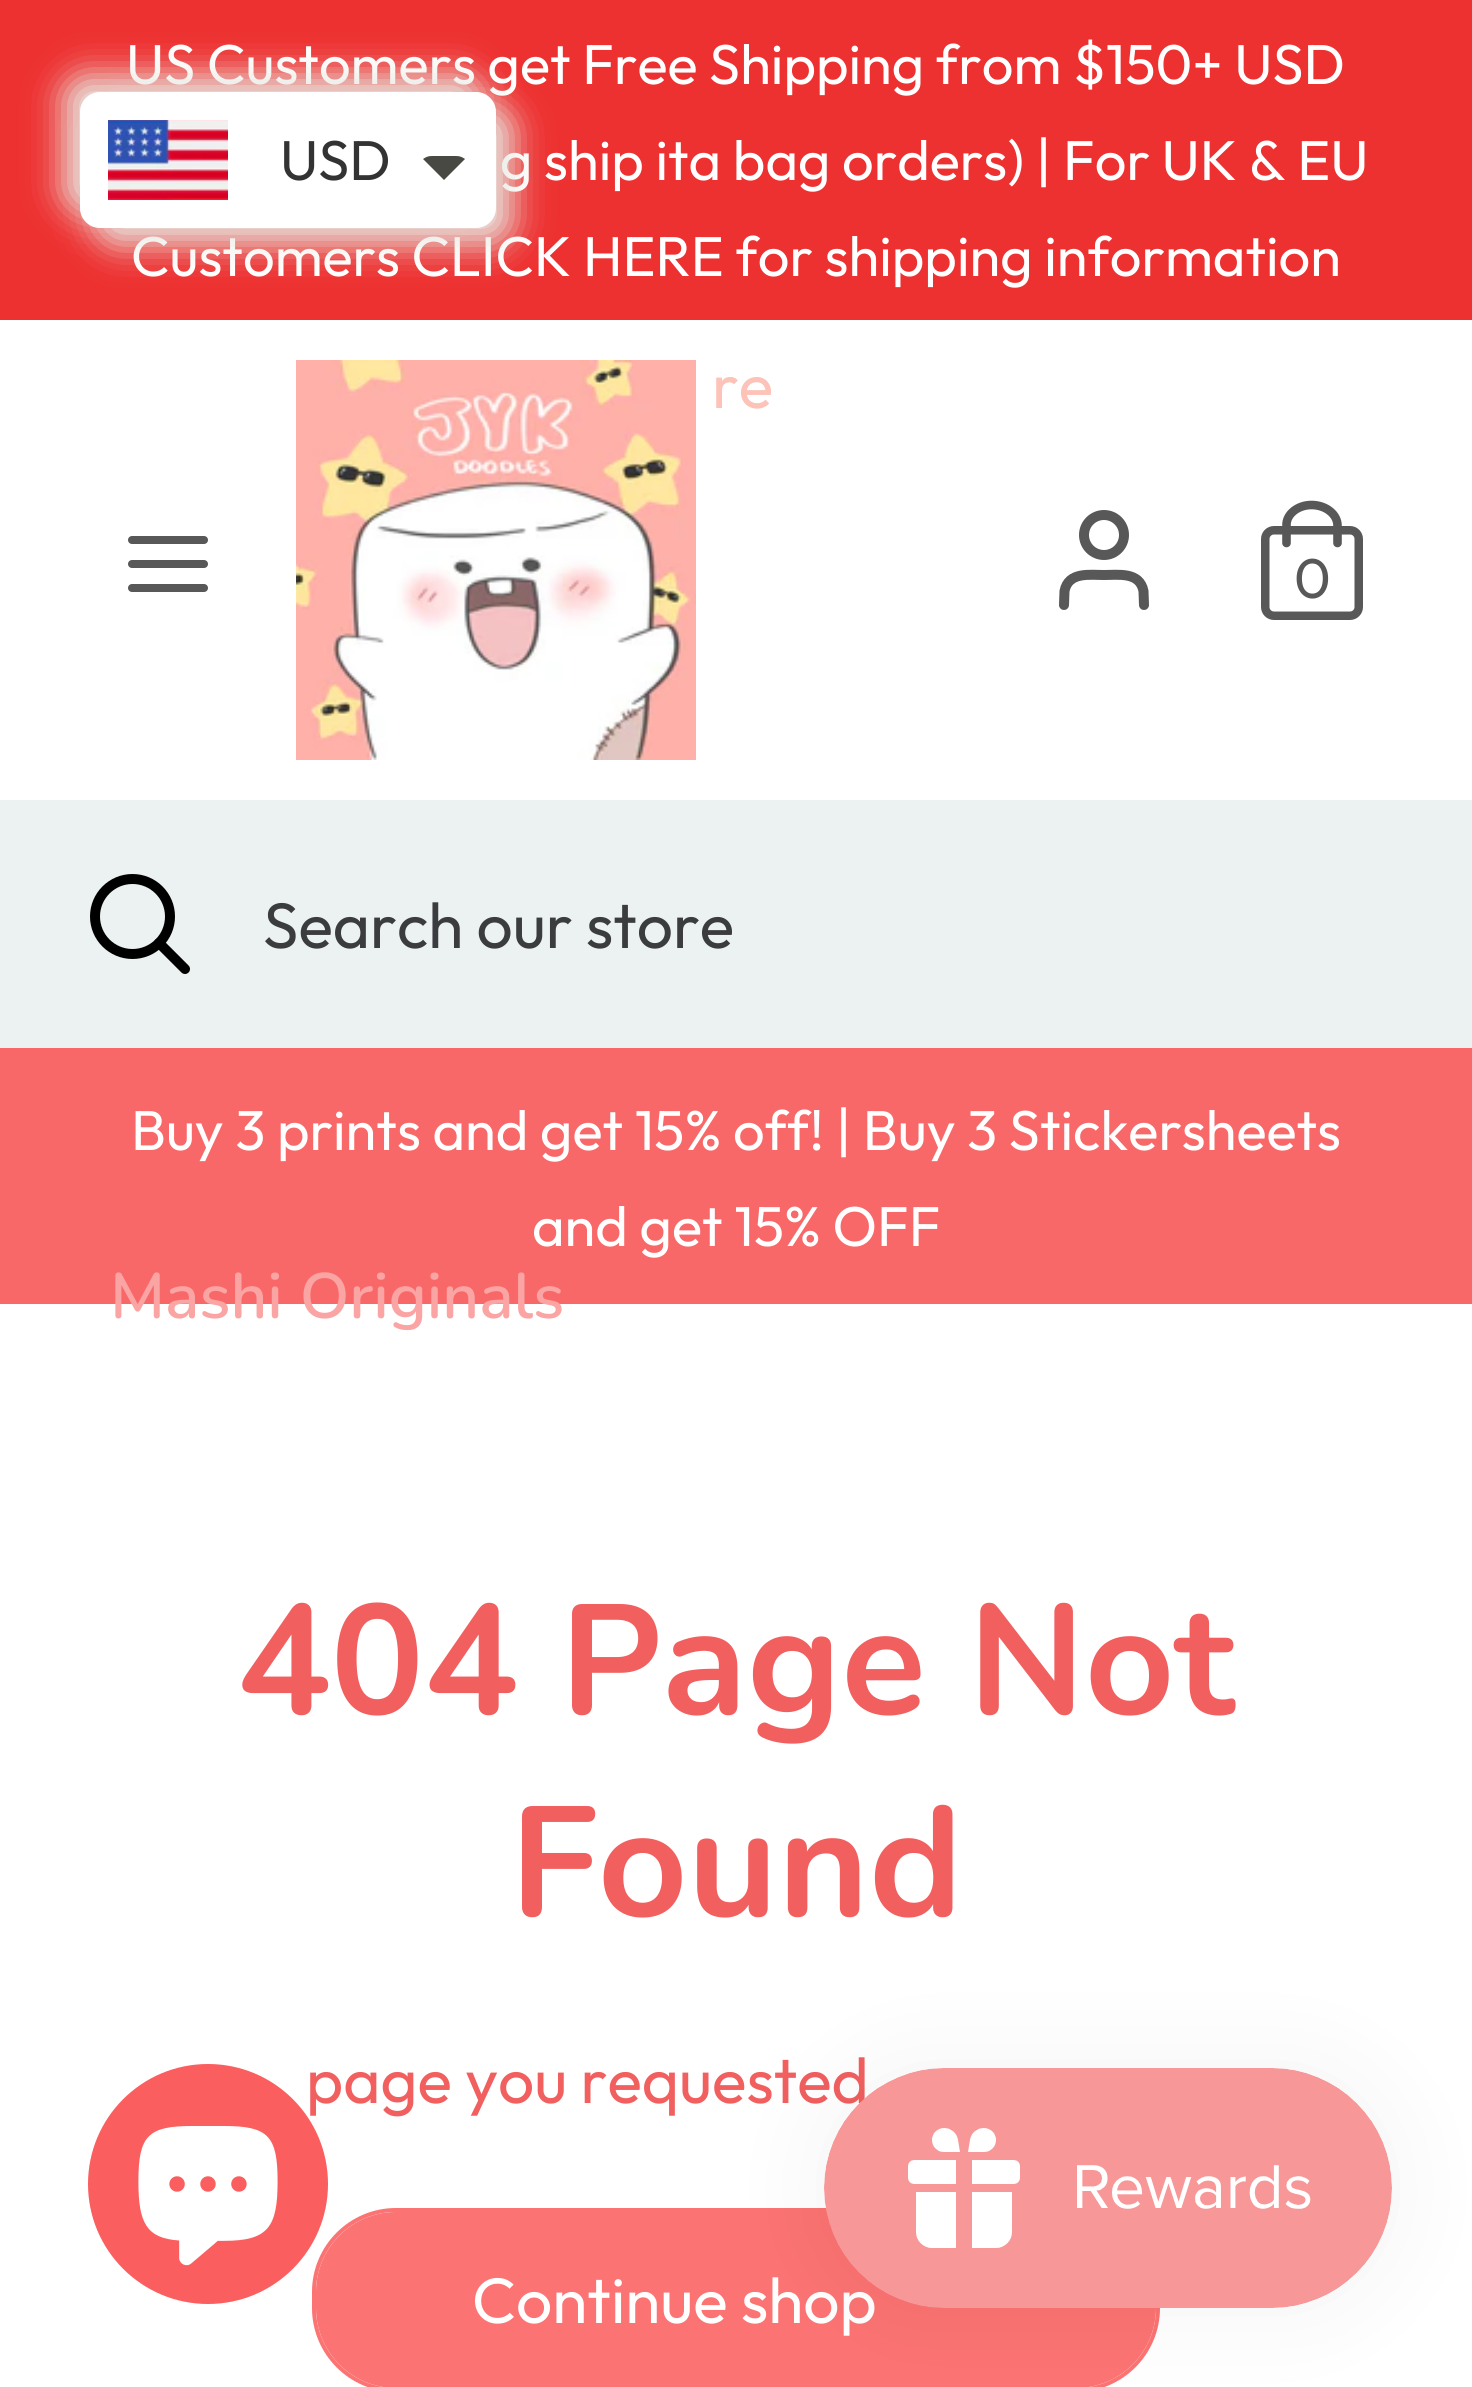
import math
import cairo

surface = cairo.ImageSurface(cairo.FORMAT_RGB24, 1472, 2387)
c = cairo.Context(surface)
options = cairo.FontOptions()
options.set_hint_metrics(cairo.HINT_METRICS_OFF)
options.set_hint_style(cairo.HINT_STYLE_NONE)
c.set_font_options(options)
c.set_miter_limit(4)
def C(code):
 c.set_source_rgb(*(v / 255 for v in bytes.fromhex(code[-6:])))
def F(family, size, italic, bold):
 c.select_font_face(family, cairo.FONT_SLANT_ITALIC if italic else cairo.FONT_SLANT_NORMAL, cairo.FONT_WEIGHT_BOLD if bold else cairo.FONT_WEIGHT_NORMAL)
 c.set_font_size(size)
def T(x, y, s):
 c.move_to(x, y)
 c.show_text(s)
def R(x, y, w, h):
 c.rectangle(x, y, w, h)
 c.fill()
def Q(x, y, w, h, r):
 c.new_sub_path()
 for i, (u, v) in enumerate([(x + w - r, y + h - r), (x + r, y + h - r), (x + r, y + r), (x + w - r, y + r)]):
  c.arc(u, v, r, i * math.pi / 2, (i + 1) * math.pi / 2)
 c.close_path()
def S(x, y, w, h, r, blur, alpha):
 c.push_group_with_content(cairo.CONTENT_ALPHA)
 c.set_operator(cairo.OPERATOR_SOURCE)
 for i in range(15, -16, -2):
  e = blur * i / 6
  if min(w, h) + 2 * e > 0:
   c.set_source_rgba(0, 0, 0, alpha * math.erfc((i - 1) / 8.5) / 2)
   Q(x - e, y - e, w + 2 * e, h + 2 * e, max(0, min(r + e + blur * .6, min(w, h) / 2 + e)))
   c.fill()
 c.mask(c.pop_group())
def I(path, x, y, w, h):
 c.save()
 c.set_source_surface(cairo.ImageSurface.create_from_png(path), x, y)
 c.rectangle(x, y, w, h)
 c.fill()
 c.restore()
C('ffffff')
c.paint()
C('ed3030')
R(0,0,1472,320)
F('Outfit',56,0,0)
C('ffffff')
T(126,84,'US Customers get Free Shipping from $150+ USD')
T(500,180,'g ship ita bag orders) | For UK & EU')
T(131,276,'Customers CLICK HERE for shipping information')
F('Outfit',64,0,0)
C('fdc2b8')
T(712,408,'re')
C('f96868')
R(0,1048,1472,256)
F('Nunito SemiBold',64,0,0)
C('fba4a4')
T(110,1318,'Mashi Originals')
C('ecf1f2')
R(0,800,1472,248)
c.new_path()
c.arc(132.5,916.5,37.5,0,2 * math.pi)
C('000000')
c.set_line_width(10)
c.stroke()
c.new_path()
c.move_to(185,969)
c.line_to(159,943)
c.set_line_cap(cairo.LINE_CAP_ROUND)
c.stroke()
F('Outfit',64,0,0)
C('3b3c3d')
T(263,948,'Search our store')
F('Outfit',56,0,0)
C('ffffff')
T(131,1150,'Buy 3 prints and get 15% off! | Buy 3 Stickersheets')
T(532,1246,'and get 15% OFF')
c.new_path()
c.move_to(132,564)
c.line_to(204,564)
c.move_to(132,540)
c.line_to(204,540)
c.move_to(132,588)
c.line_to(204,588)
C('585858')
c.set_line_width(8)
c.stroke()
I('1.png',296,360,400,400)
c.new_path()
c.move_to(1144,605)
c.line_to(1143.5,591)
c.curve_to(1139.5,571.5,1118.5,575,1104,575)
c.curve_to(1089.5,575,1068.5,571.5,1064.5,591)
c.line_to(1064,605)
c.set_line_width(10)
c.stroke()
c.arc(1104,535,20,0,2 * math.pi)
c.set_line_cap(cairo.LINE_CAP_BUTT)
c.stroke()
Q(1265.25,530.25,93.5,85.5,8.75)
c.set_line_width(8.5)
c.stroke()
c.new_path()
c.move_to(1286.5,543)
c.line_to(1286.5,525.5)
c.curve_to(1286,514.5,1297.5,505,1311.5,505)
c.curve_to(1326,505,1337.5,514.5,1337.5,525.5)
c.line_to(1337.5,543)
c.set_line_width(8.6)
c.set_line_cap(cairo.LINE_CAP_ROUND)
c.stroke()
T(1294,598,'0')
C('e8e8e2')
S(64,76,416,136,20,18,1)
S(96,108,416,136,20,18,1)
C('ffffff')
Q(80,92,416,136,20)
c.fill()
I('2.png',108,120,120,80)
C('333333')
T(280,180,'USD')
C('474942')
c.new_path()
c.move_to(432,156)
c.curve_to(428,156,426,157,423,159)
c.line_to(444,180)
c.line_to(465,159)
c.curve_to(462,157,460,156,456,156)
c.close_path()
c.fill()
F('Nunito',156,0,1)
C('f15f5f')
T(237,1714,'404 Page Not')
T(510,1916,'Found')
F('Outfit',64,0,0)
T(306,2103,'page you requested')
Q(314,2210,844,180,82)
C('fc7373')
c.set_line_width(4)
c.set_line_cap(cairo.LINE_CAP_BUTT)
c.stroke()
Q(316,2212,840,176,80)
c.fill()
C('ffffff')
T(472,2323,'Continue shop')
C('fa5e5e')
c.new_path()
c.arc(208,2184,120,0,2 * math.pi)
c.fill()
I('3.png',138,2126,140,140)
C('000000')
S(824,2068,568,240,120,50,.05)
I('4.png',824,2068,568,240)
surface.write_to_png('o.png')
